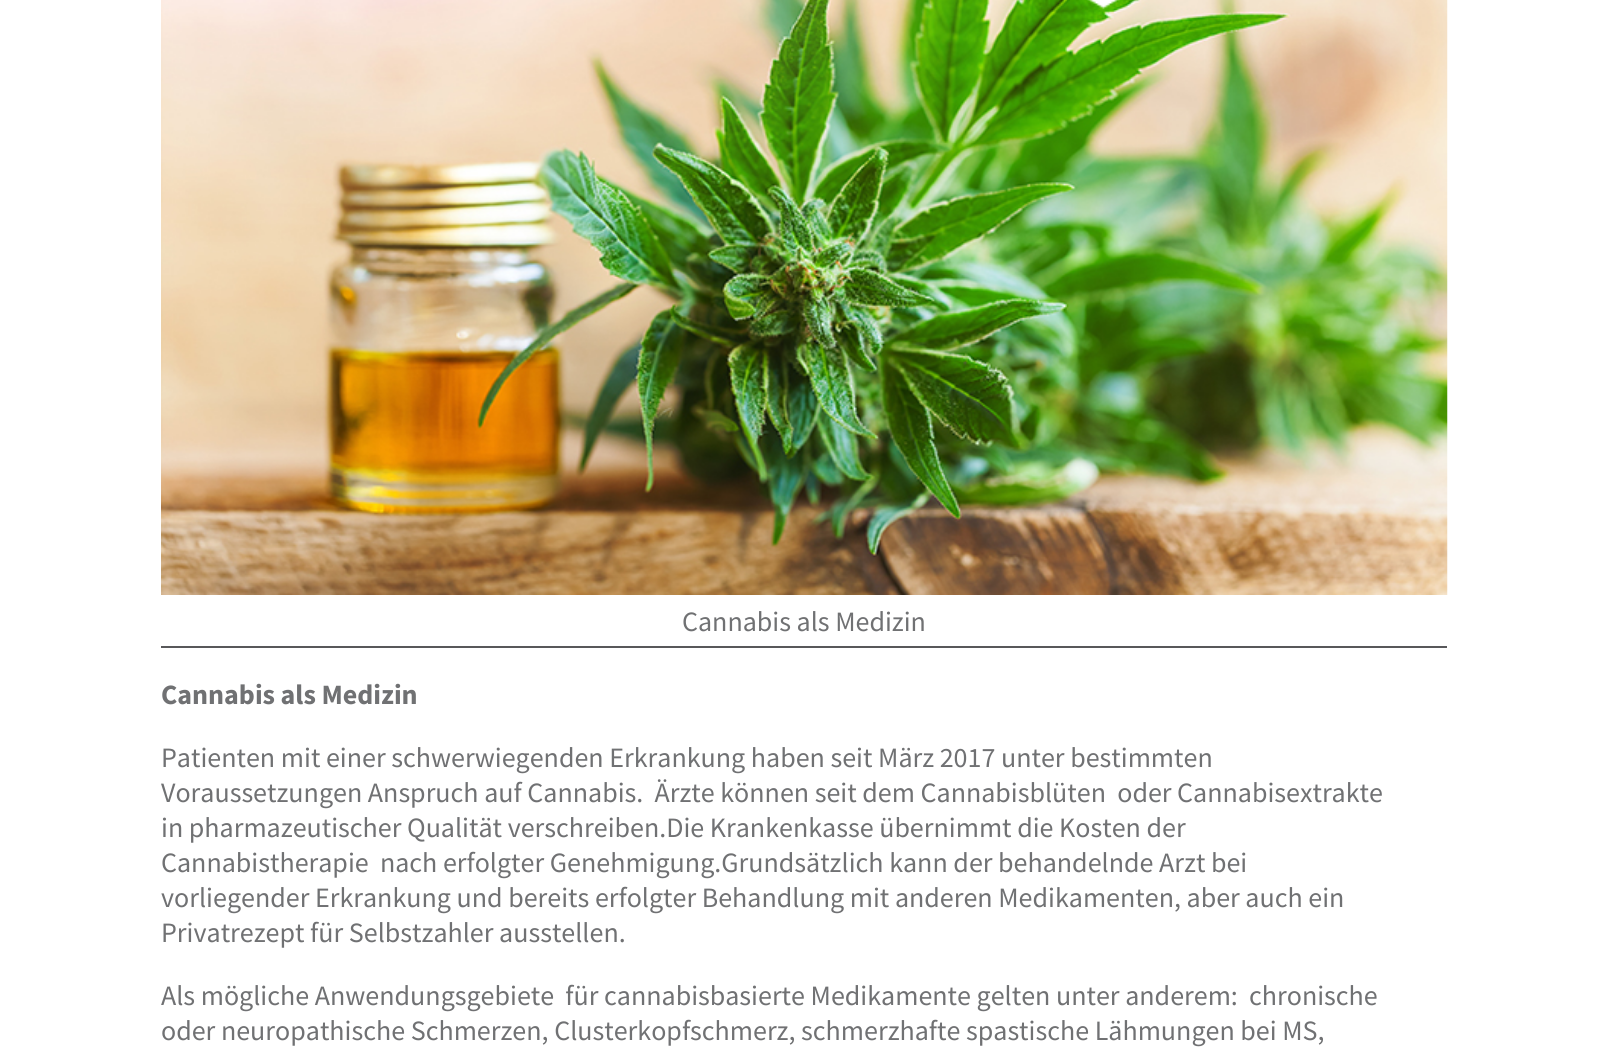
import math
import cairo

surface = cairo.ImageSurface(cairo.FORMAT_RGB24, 1607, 1052)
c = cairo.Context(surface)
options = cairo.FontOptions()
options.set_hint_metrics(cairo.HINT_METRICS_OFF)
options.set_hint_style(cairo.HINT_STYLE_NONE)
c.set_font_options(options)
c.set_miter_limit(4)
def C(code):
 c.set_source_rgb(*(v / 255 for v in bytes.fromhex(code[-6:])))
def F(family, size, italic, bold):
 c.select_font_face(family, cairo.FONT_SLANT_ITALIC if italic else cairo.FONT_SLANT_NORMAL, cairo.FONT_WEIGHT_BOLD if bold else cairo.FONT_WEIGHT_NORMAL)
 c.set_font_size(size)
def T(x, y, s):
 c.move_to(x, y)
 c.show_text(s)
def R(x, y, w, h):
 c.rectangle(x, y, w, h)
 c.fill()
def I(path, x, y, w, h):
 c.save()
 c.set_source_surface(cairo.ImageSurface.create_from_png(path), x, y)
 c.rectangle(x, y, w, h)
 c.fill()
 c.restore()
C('ffffff')
c.paint()
I('2.png',161,0,1287,595)
I('1.png',1087,0,33,10)
C('58585a')
R(161,646,1286,2)
F('Source Sans Pro',28,0,0)
C('707173')
T(682,631,'Cannabis als Medizin')
F('Source Sans Pro',28,0,1)
T(161,704,'Cannabis als Medizin')
F('Source Sans Pro',28,0,0)
T(161,767,'Patienten mit einer schwerwiegenden Erkrankung haben seit März 2017 unter bestimmten')
T(161,802,'Voraussetzungen Anspruch auf Cannabis.  Ärzte können seit dem Cannabisblüten  oder Cannabisextrakte')
T(161,837,'in pharmazeutischer Qualität verschreiben.Die Krankenkasse übernimmt die Kosten der')
T(161,872,'Cannabistherapie  nach erfolgter Genehmigung.Grundsätzlich kann der behandelnde Arzt bei')
T(161,907,'vorliegender Erkrankung und bereits erfolgter Behandlung mit anderen Medikamenten, aber auch ein')
T(161,942,'Privatrezept für Selbstzahler ausstellen.')
T(161,1005,'Als mögliche Anwendungsgebiete  für cannabisbasierte Medikamente gelten unter anderem:  chronische')
T(161,1040,'oder neuropathische Schmerzen, Clusterkopfschmerz, schmerzhafte spastische Lähmungen bei MS,')
surface.write_to_png('o.png')
